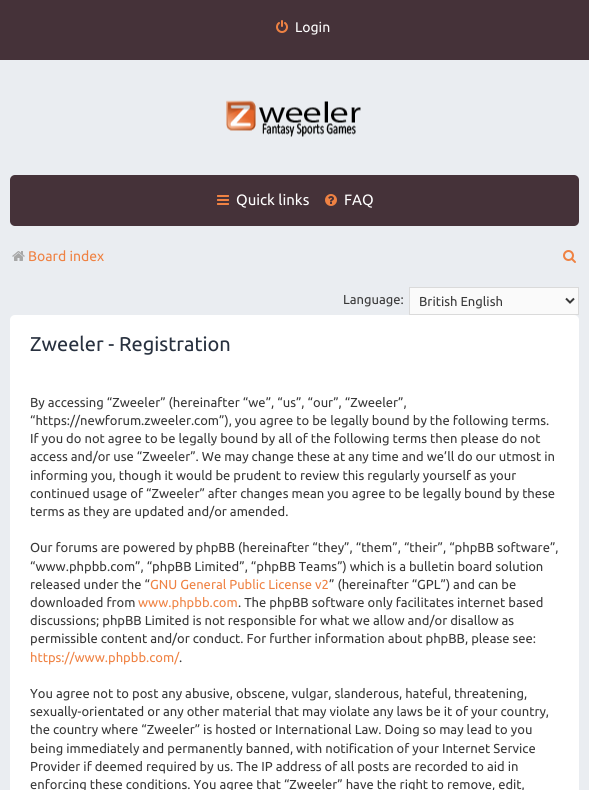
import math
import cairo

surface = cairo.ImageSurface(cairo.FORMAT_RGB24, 589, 790)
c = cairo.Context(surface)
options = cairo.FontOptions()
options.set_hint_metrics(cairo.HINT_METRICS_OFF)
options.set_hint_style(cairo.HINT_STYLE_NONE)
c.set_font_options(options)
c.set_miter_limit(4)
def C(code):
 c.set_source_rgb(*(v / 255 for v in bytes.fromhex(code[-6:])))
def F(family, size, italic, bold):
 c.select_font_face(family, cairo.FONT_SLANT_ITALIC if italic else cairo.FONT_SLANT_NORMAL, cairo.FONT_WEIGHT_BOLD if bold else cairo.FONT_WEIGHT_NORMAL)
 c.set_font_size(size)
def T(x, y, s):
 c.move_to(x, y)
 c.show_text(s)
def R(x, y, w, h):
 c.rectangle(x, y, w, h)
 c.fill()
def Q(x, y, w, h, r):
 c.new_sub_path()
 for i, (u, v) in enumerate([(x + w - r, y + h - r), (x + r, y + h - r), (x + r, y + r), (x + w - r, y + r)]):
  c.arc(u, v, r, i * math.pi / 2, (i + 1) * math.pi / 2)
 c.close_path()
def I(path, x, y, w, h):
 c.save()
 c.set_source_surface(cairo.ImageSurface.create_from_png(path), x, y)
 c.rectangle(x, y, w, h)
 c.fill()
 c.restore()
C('eaedf1')
c.paint()
C('453239')
R(0,0,589,60)
I('1.png',276,20,12,13)
F('Ubuntu',14,0,0)
C('ffffff')
T(295,32,'Login')
I('2.png',226,100,135,37)
C('453239')
Q(10,175,569,51,5)
c.fill()
I('3.png',217,195,12,10)
F('Ubuntu',15,0,0)
C('ffffff')
T(236,205,'Quick links')
I('4.png',325,194,12,12)
T(344,205,'FAQ')
I('5.png',12,251,13,10)
F('Ubuntu',14,0,0)
C('ef8243')
T(28,261,'Board index')
I('6.png',563,250,13,13)
F('Ubuntu',13,0,0)
C('383838')
T(343,304,'Language:')
C('fafafa')
c.rectangle(409.5,287.5,169,27)
c.fill_preserve()
C('dadada')
c.set_line_width(1)
c.stroke()
c.new_path()
c.move_to(566,298.5)
c.line_to(570,302.5)
c.line_to(574,298.5)
C('383838')
c.set_line_width(2)
c.stroke()
T(419,306,'British English')
C('ffffff')
Q(10,315,569,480,5)
c.fill()
F('Ubuntu',20,0,0)
C('28313f')
T(30,351,'Zweeler - Registration')
F('Ubuntu',13,0,0)
C('383838')
T(30,407,'By accessing “Zweeler” (hereinafter “we”, “us”, “our”, “Zweeler”,')
T(30,425,'“https://newforum.zweeler.com”), you agree to be legally bound by the following terms.')
T(30,443,'If you do not agree to be legally bound by all of the following terms then please do not')
T(30,461,'access and/or use “Zweeler”. We may change these at any time and we’ll do our utmost in')
T(30,480,'informing you, though it would be prudent to review this regularly yourself as your')
T(30,498,'continued usage of “Zweeler” after changes mean you agree to be legally bound by these')
T(30,516,'terms as they are updated and/or amended.')
T(30,552,'Our forums are powered by phpBB (hereinafter “they”, “them”, “their”, “phpBB software”,')
T(30,571,'“www.phpbb.com”, “phpBB Limited”, “phpBB Teams”) which is a bulletin board solution')
T(30,589,'released under the “')
C('ef8243')
T(150,589,'GNU General Public License v2')
C('383838')
T(329,589,'” (hereinafter “GPL”) and can be')
T(30,607,'downloaded from')
C('ef8243')
T(138,607,'www.phpbb.com')
C('383838')
T(238,607,'. The phpBB software only facilitates internet based')
T(30,625,'discussions; phpBB Limited is not responsible for what we allow and/or disallow as')
T(30,643,'permissible content and/or conduct. For further information about phpBB, please see:')
C('ef8243')
T(30,662,'https://www.phpbb.com/')
C('383838')
T(179,662,'.')
T(30,698,'You agree not to post any abusive, obscene, vulgar, slanderous, hateful, threatening,')
T(30,716,'sexually-orientated or any other material that may violate any laws be it of your country,')
T(30,734,'the country where “Zweeler” is hosted or International Law. Doing so may lead to you')
T(30,753,'being immediately and permanently banned, with notification of your Internet Service')
T(30,771,'Provider if deemed required by us. The IP address of all posts are recorded to aid in')
T(30,789,'enforcing these conditions. You agree that “Zweeler” have the right to remove, edit,')
surface.write_to_png('o.png')
